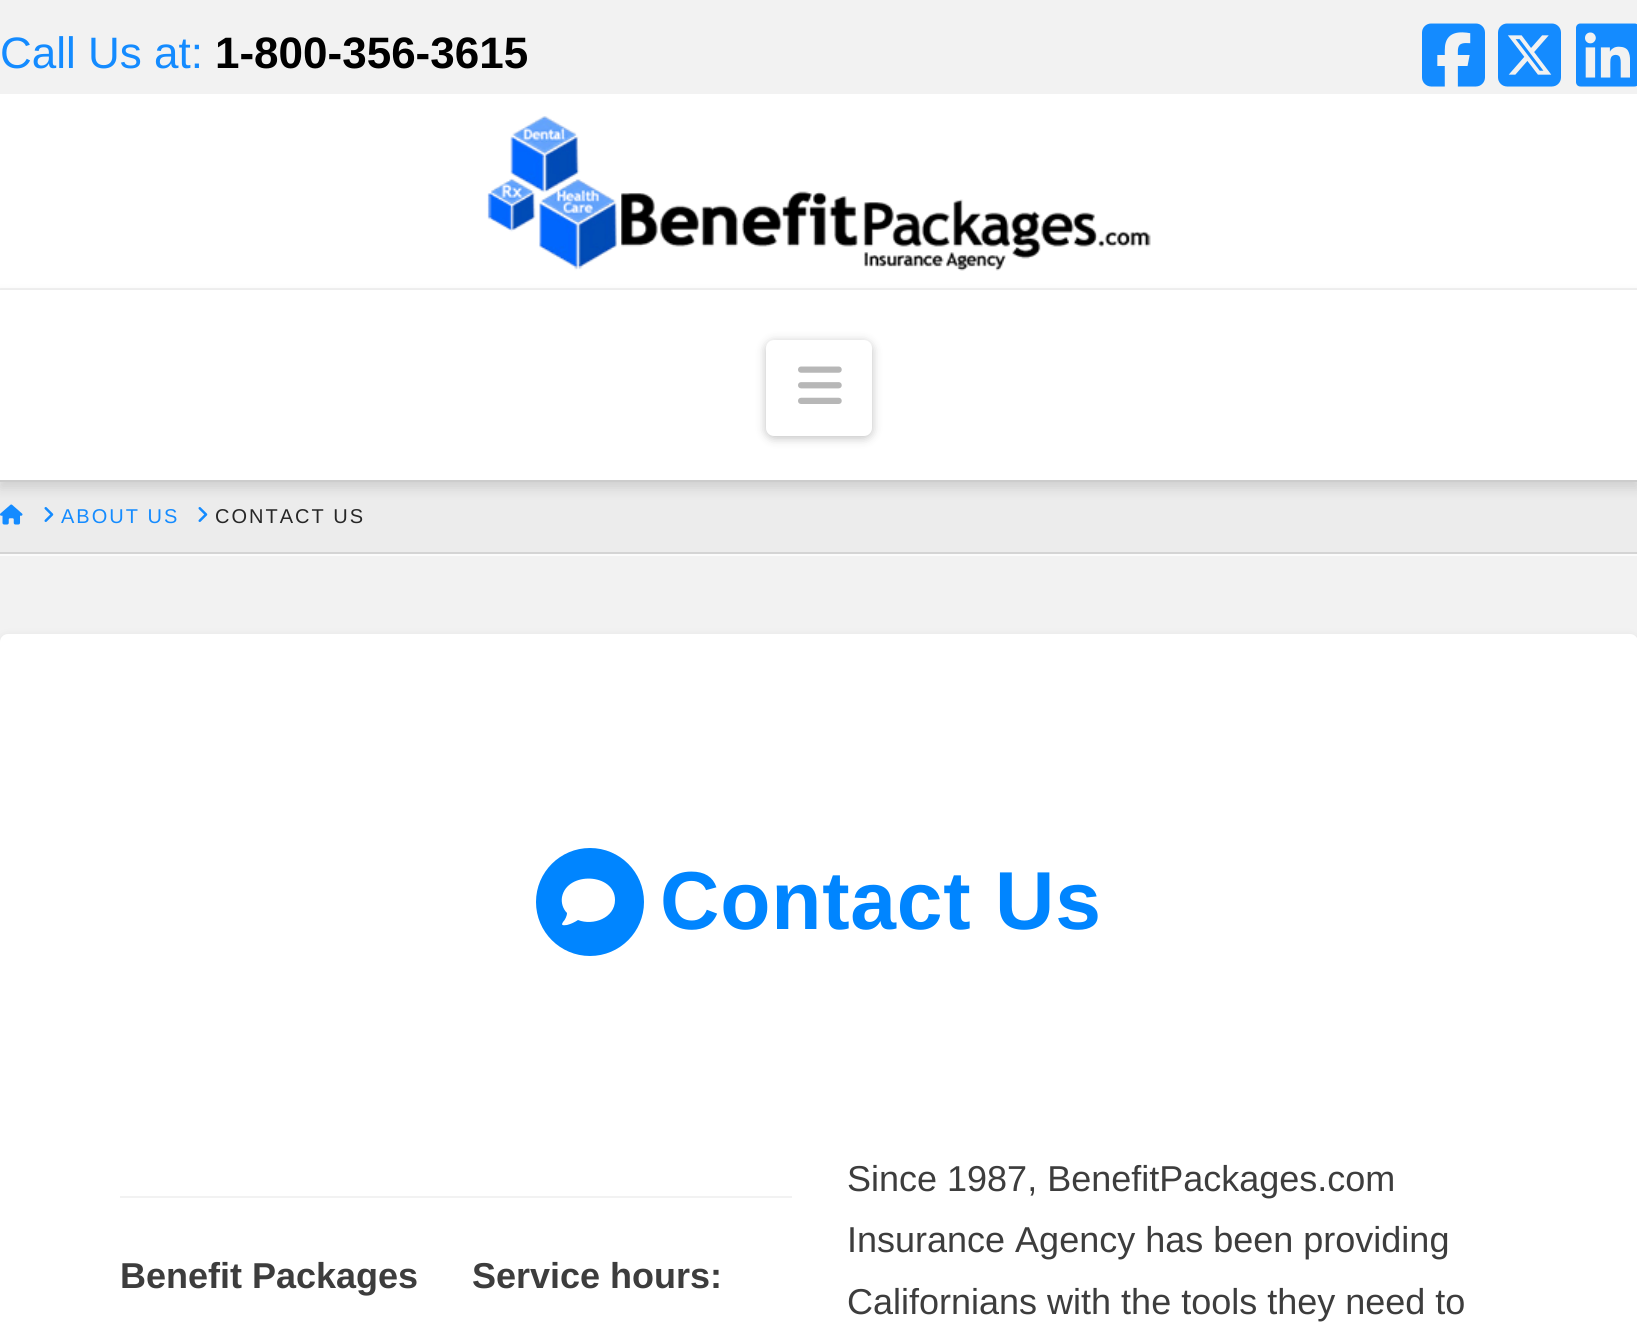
import math
import cairo

surface = cairo.ImageSurface(cairo.FORMAT_RGB24, 1637, 1330)
c = cairo.Context(surface)
options = cairo.FontOptions()
options.set_hint_metrics(cairo.HINT_METRICS_OFF)
options.set_hint_style(cairo.HINT_STYLE_NONE)
c.set_font_options(options)
c.set_miter_limit(4)
def C(code):
 c.set_source_rgb(*(v / 255 for v in bytes.fromhex(code[-6:])))
def F(family, size, italic, bold):
 c.select_font_face(family, cairo.FONT_SLANT_ITALIC if italic else cairo.FONT_SLANT_NORMAL, cairo.FONT_WEIGHT_BOLD if bold else cairo.FONT_WEIGHT_NORMAL)
 c.set_font_size(size)
def T(x, y, s):
 c.move_to(x, y)
 c.show_text(s)
def L(x, y, s, letter, word):
 c.move_to(x, y)
 for ch in s:
  c.show_text(ch)
  c.rel_move_to(letter + word * (ch == ' '), 0)
def R(x, y, w, h):
 c.rectangle(x, y, w, h)
 c.fill()
def Q(x, y, w, h, r):
 c.new_sub_path()
 for i, (u, v) in enumerate([(x + w - r, y + h - r), (x + r, y + h - r), (x + r, y + r), (x + w - r, y + r)]):
  c.arc(u, v, r, i * math.pi / 2, (i + 1) * math.pi / 2)
 c.close_path()
def S(x, y, w, h, r, blur, alpha):
 c.push_group_with_content(cairo.CONTENT_ALPHA)
 c.set_operator(cairo.OPERATOR_SOURCE)
 for i in range(15, -16, -2):
  e = blur * i / 6
  if min(w, h) + 2 * e > 0:
   c.set_source_rgba(0, 0, 0, alpha * math.erfc((i - 1) / 8.5) / 2)
   Q(x - e, y - e, w + 2 * e, h + 2 * e, max(0, min(r + e + blur * .6, min(w, h) / 2 + e)))
   c.fill()
 c.mask(c.pop_group())
def I(path, x, y, w, h):
 c.save()
 c.set_source_surface(cairo.ImageSurface.create_from_png(path), x, y)
 c.rectangle(x, y, w, h)
 c.fill()
 c.restore()
C('f2f2f2')
c.paint()
F('Liberation Sans',44,0,0)
C('148bff')
T(0,68,'Call Us at:')
F('Liberation Sans',44,0,1)
C('000000')
T(215,68,'1-800-356-3615')
I('1.png',1422,23,63,64)
I('2.png',1498,23,63,64)
I('3.png',1576,23,61,64)
C('ffffff')
R(0,94,1637,194)
I('4.png',487,116,664,155)
C('ececec')
R(0,482,1637,70)
I('6.png',0,504,23,21)
I('7.png',44,507,10,15)
I('7.png',198,507,10,15)
C('000000')
S(0,296,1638,192,0,6.5,.13)
C('ffffff')
R(0,290,1637,190)
C('cccccc')
R(0,480,1637,2)
C('000000')
S(766,342,106,96,8,5,.25)
C('ffffff')
Q(766,340,106,96,8)
c.fill()
I('5.png',798,366,44,38)
C('fbfbfb')
R(0,554,1637,2)
C('d4d4d4')
R(0,552,1637,2)
F('Liberation Sans',20,0,0)
C('148bff')
L(61,523,'ABOUT US',2,0)
C('272727')
L(215,523,'CONTACT US',2,0)
C('000000')
S(0,640,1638,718,8,6.5,.13)
C('ffffff')
Q(0,634,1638,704,8)
c.fill()
C('0085ff')
c.arc(590,902,54,0,2 * math.pi)
c.fill()
C('ffffff')
c.new_path()
c.move_to(615,900)
c.curve_to(615,918,593,926,578,920)
c.curve_to(575,922,571,924,567,925)
c.curve_to(566,925,562,926,562,924)
c.line_to(563,922)
c.curve_to(565,920,567,916,567,913)
c.curve_to(563,909,561,903,562,897)
c.curve_to(567,871,615,873,615,900)
c.close_path()
c.fill()
F('Liberation Sans',82.25,0,1)
C('0085ff')
L(660,929,'Contact Us',.75,0)
C('f2f2f2')
R(120,1196,672,2)
F('Liberation Sans',36,0,1)
C('3d3d3d')
T(120,1288,'Benefit Packages')
T(472,1288,'Service hours:')
F('Liberation Sans',36,0,0)
T(847,1191,'Since 1987, BenefitPackages.com')
T(847,1252,'Insurance Agency has been providing')
T(847,1314,'Californians with the tools they need to')
surface.write_to_png('o.png')
